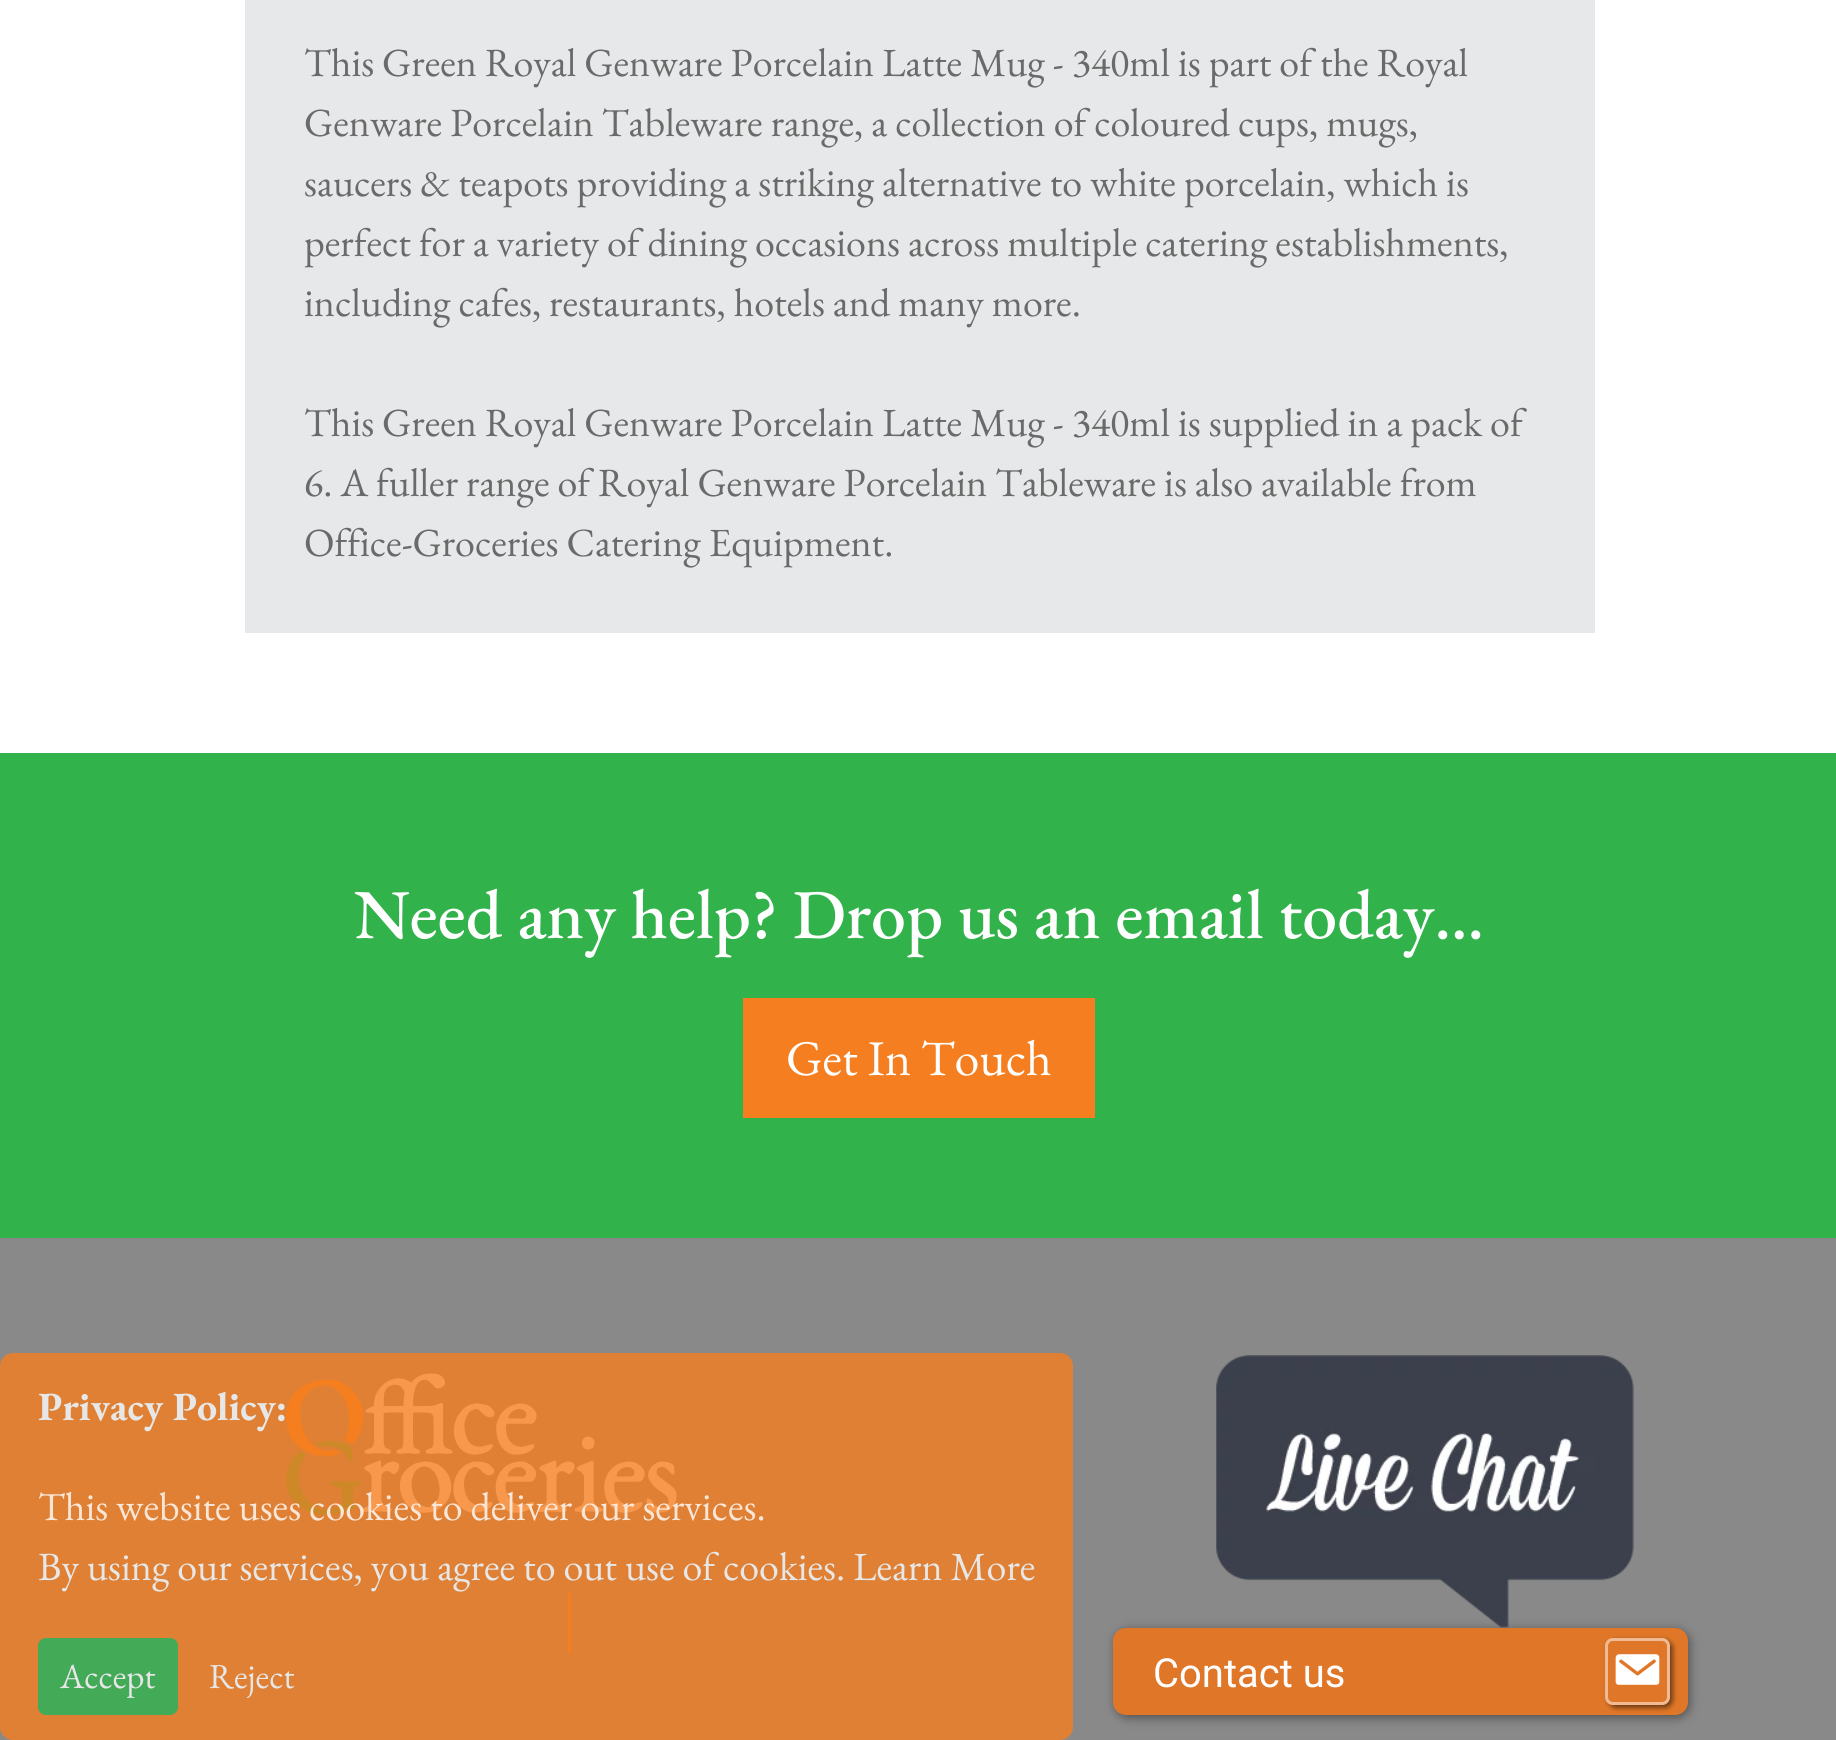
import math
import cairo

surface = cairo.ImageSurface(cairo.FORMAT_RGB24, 1836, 1740)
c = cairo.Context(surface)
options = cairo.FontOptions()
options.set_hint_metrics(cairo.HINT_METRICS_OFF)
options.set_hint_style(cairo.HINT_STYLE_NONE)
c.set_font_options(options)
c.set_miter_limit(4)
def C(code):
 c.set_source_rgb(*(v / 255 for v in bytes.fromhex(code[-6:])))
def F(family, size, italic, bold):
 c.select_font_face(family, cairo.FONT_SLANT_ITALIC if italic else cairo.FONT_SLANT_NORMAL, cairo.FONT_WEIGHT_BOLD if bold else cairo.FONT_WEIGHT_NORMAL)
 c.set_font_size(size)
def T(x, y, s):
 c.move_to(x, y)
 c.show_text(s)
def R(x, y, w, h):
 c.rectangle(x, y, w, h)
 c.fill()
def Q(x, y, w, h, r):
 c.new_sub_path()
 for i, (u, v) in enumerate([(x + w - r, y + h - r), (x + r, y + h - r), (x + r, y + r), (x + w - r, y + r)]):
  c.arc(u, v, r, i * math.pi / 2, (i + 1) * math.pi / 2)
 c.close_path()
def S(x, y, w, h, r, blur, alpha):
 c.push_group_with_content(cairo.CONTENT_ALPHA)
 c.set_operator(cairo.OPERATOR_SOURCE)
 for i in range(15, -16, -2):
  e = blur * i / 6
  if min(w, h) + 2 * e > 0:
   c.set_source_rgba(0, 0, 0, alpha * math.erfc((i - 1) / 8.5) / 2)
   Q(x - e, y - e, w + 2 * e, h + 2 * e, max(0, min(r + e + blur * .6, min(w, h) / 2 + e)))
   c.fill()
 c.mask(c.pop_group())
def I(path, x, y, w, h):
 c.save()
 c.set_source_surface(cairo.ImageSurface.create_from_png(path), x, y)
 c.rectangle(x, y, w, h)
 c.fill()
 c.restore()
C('ffffff')
c.paint()
C('e7e8e9')
R(245,0,1350,633)
F('EB Garamond',40,0,0)
C('6a6a6a')
T(304,76,'This Green Royal Genware Porcelain Latte Mug - 340ml is part of the Royal')
T(304,136,'Genware Porcelain Tableware range, a collection of coloured cups, mugs,')
T(304,196,'saucers & teapots providing a striking alternative to white porcelain, which is')
T(304,256,'perfect for a variety of dining occasions across multiple catering establishments,')
T(304,316,'including cafes, restaurants, hotels and many more.')
T(304,436,'This Green Royal Genware Porcelain Latte Mug - 340ml is supplied in a pack of')
T(304,496,'6. A fuller range of Royal Genware Porcelain Tableware is also available from')
T(304,556,'Office-Groceries Catering Equipment.')
C('32b24a')
R(0,753,1836,485)
F('EB Garamond Medium',70,0,0)
C('ffffff')
T(354,938,'Need any help? Drop us an email today...')
C('f57f20')
R(743,998,352,120)
F('EB Garamond',50,0,0)
C('ffffff')
T(786,1075,'Get In Touch')
C('898989')
R(0,1238,1836,502)
I('1.png',286,1373,391,142)
C('f57f20')
R(568,1593,3,60)
c.set_source_rgba(0.961,0.498,0.125,0.8)
Q(0,1353,1073,387,13)
c.fill()
F('EB Garamond',40,0,1)
C('e7e7e7')
T(38,1420,'Privacy Policy:')
F('EB Garamond',40,0,0)
C('f9e6d7')
T(38,1520,'This website uses cookies to deliver our services.')
C('e7e7e7')
T(38,1580,'By using our services, you agree to out use of cookies. Learn More')
C('43aa57')
Q(39.5,1639.5,137,74,6.5)
c.fill_preserve()
c.set_line_width(3)
c.stroke()
F('EB Garamond',35,0,0)
C('e7e7e7')
T(60,1688,'Accept')
T(209,1688,'Reject')
C('000000')
S(1115,1630,575,88,13,5,.4)
I('2.png',1216,1355,418,273)
C('e07728')
Q(1113,1628,575,87,13)
c.fill()
F('Roboto',40,0,0)
C('ffffff')
T(1153,1687,'Contact us')
c.save()
c.set_fill_rule(cairo.FILL_RULE_EVEN_ODD)
c.new_path()
c.move_to(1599,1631)
c.line_to(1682,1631)
c.line_to(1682,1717)
c.line_to(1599,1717)
c.close_path()
c.move_to(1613,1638)
c.line_to(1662,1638)
c.curve_to(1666.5,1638,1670,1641.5,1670,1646)
c.line_to(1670,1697)
c.curve_to(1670,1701.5,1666.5,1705,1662,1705)
c.line_to(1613,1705)
c.curve_to(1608.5,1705,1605,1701.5,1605,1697)
c.line_to(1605,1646)
c.curve_to(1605,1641.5,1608.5,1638,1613,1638)
c.close_path()
c.clip()
C('000000')
S(1608,1640,65,68,8,2.5,.5)
c.restore()
Q(1606.5,1639.5,62,64,6.5)
c.set_source_rgba(1,1,1,0.5)
c.stroke()
I('3.png',1615,1654,45,31)
surface.write_to_png('o.png')
